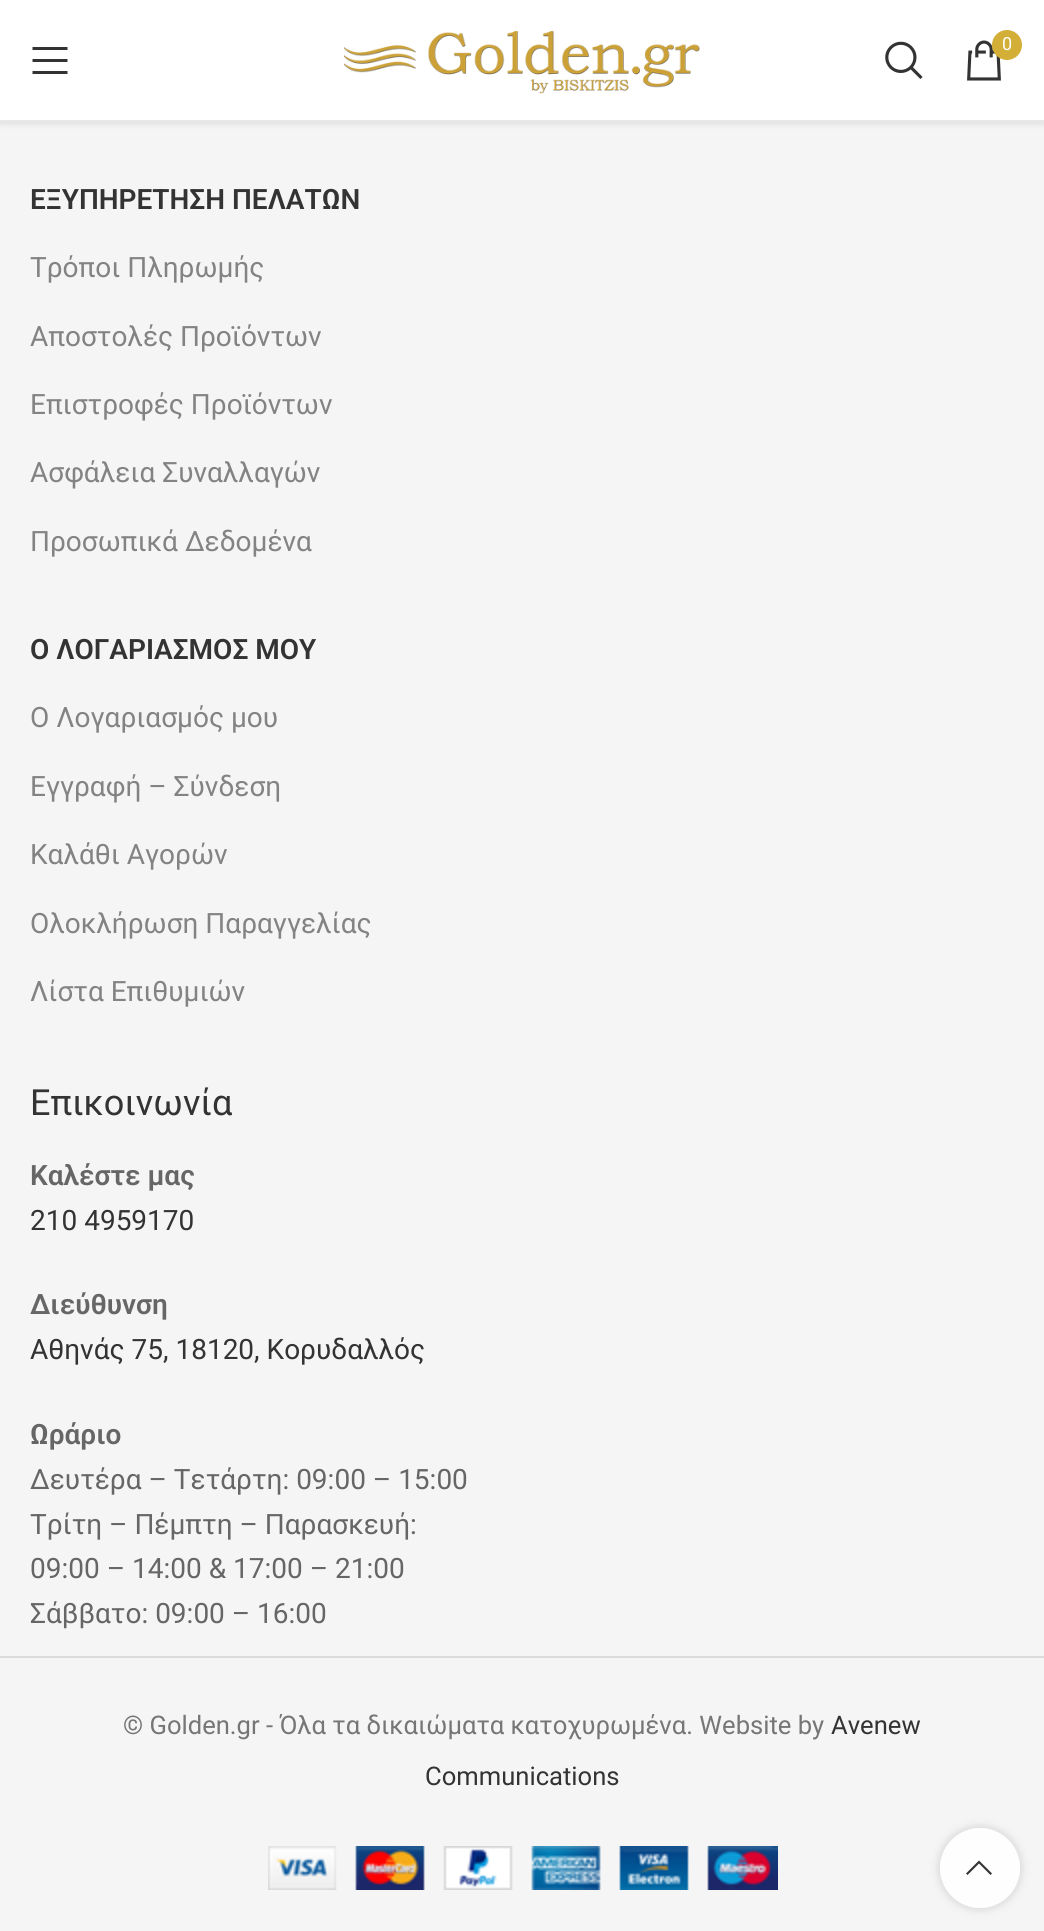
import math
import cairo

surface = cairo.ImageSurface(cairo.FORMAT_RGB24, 1044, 1931)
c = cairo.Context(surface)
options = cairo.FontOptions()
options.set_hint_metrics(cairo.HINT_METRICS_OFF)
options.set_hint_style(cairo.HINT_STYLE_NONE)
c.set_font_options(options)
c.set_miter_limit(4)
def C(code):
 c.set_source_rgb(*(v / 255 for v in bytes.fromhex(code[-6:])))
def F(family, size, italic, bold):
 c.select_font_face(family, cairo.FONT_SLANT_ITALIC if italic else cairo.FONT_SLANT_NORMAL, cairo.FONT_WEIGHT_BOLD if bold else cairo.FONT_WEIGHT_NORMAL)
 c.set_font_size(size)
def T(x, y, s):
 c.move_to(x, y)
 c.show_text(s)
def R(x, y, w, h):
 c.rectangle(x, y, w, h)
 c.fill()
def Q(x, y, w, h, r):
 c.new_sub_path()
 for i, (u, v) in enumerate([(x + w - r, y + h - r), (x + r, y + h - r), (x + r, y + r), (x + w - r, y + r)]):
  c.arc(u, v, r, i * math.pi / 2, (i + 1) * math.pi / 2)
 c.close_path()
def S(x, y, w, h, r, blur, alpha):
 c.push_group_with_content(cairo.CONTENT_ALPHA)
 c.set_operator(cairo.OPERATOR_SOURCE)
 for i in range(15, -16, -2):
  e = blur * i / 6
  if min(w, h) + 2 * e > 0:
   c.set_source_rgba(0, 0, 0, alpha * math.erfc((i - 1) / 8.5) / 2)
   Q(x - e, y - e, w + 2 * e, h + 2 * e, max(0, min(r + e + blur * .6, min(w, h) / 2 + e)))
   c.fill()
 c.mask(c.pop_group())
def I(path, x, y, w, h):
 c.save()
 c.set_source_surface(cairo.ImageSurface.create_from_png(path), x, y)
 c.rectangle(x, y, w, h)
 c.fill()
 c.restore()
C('f5f5f5')
c.paint()
C('000000')
S(0,2,1044,122,0,3,.1)
C('ffffff')
R(0,0,1044,120)
C('e8e8e8')
R(0,120,1044,2)
I('1.png',344,31,356,63)
I('2.png',885,41,38,38)
I('3.png',967,40,34,41)
C('d3af37')
c.arc(1007,45,15,0,2 * math.pi)
c.fill()
F('Roboto',18,0,0)
C('ffffff')
T(1002,50,'0')
C('333333')
c.new_path()
c.move_to(32.5,50)
c.line_to(67.5,50)
c.line_to(67.5,47)
c.line_to(32.5,47)
c.close_path()
c.move_to(32.5,62)
c.line_to(67.5,62)
c.line_to(67.5,59)
c.line_to(32.5,59)
c.close_path()
c.move_to(32.5,74)
c.line_to(67.5,74)
c.line_to(67.5,71)
c.line_to(32.5,71)
c.close_path()
c.fill()
F('Roboto SemiBold',28,0,0)
T(30,209,'ΕΞΥΠΗΡΕΤΗΣΗ ΠΕΛΑΤΩΝ')
F('Roboto',28,0,0)
C('838383')
T(30,277,'Τρόποι Πληρωμής')
T(30,346,'Αποστολές Προϊόντων')
T(30,414,'Επιστροφές Προϊόντων')
T(30,482,'Ασφάλεια Συναλλαγών')
T(30,551,'Προσωπικά Δεδομένα')
F('Roboto SemiBold',28,0,0)
C('333333')
T(30,659,'Ο ΛΟΓΑΡΙΑΣΜΟΣ ΜΟΥ')
F('Roboto',28,0,0)
C('838383')
T(30,727,'Ο Λογαριασμός μου')
T(30,796,'Εγγραφή – Σύνδεση')
T(30,864,'Καλάθι Αγορών')
T(30,933,'Ολοκλήρωση Παραγγελίας')
T(30,1001,'Λίστα Επιθυμιών')
F('Roboto',36,0,0)
C('333333')
T(30,1115,'Επικοινωνία')
F('Roboto SemiBold',28,0,0)
C('666666')
T(30,1185,'Καλέστε μας')
F('Roboto',28,0,0)
C('333333')
T(30,1230,'210 4959170')
F('Roboto SemiBold',28,0,0)
C('666666')
T(30,1314,'Διεύθυνση')
F('Roboto',28,0,0)
C('333333')
T(30,1359,'Αθηνάς 75, 18120, Κορυδαλλός')
F('Roboto SemiBold',28,0,0)
C('666666')
T(30,1444,'Ωράριο')
F('Roboto',28,0,0)
T(30,1489,'Δευτέρα – Τετάρτη: 09:00 – 15:00')
T(30,1534,'Τρίτη – Πέμπτη – Παρασκευή:')
T(30,1578,'09:00 – 14:00 & 17:00 – 21:00')
T(30,1623,'Σάββατο: 09:00 – 16:00')
C('dbdbdb')
R(0,1656,1044,2)
F('Roboto',25.6,0,0)
C('767676')
T(123,1734,'© Golden.gr - Όλα τα δικαιώματα κατοχυρωμένα. Website by')
C('333333')
T(831,1734,'Avenew')
T(425,1785,'Communications')
I('4.png',268,1846,510,44)
c.save()
c.set_fill_rule(cairo.FILL_RULE_EVEN_ODD)
c.new_path()
c.move_to(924,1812)
c.line_to(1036,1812)
c.line_to(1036,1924)
c.line_to(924,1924)
c.close_path()
c.move_to(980,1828)
c.curve_to(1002,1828,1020,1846,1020,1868)
c.curve_to(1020,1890,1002,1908,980,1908)
c.curve_to(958,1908,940,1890,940,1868)
c.curve_to(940,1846,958,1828,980,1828)
c.close_path()
c.clip()
C('000000')
S(940,1828,80,80,40,5,.17)
c.restore()
c.set_source_rgba(1,1,1,0.9)
c.arc(980,1868,40,0,2 * math.pi)
c.fill()
C('333333')
c.new_path()
c.move_to(990.5,1875)
c.line_to(992,1873.5)
c.line_to(979,1860.5)
c.line_to(966,1873.5)
c.line_to(967.5,1875)
c.line_to(979,1863.5)
c.close_path()
c.fill()
surface.write_to_png('o.png')
